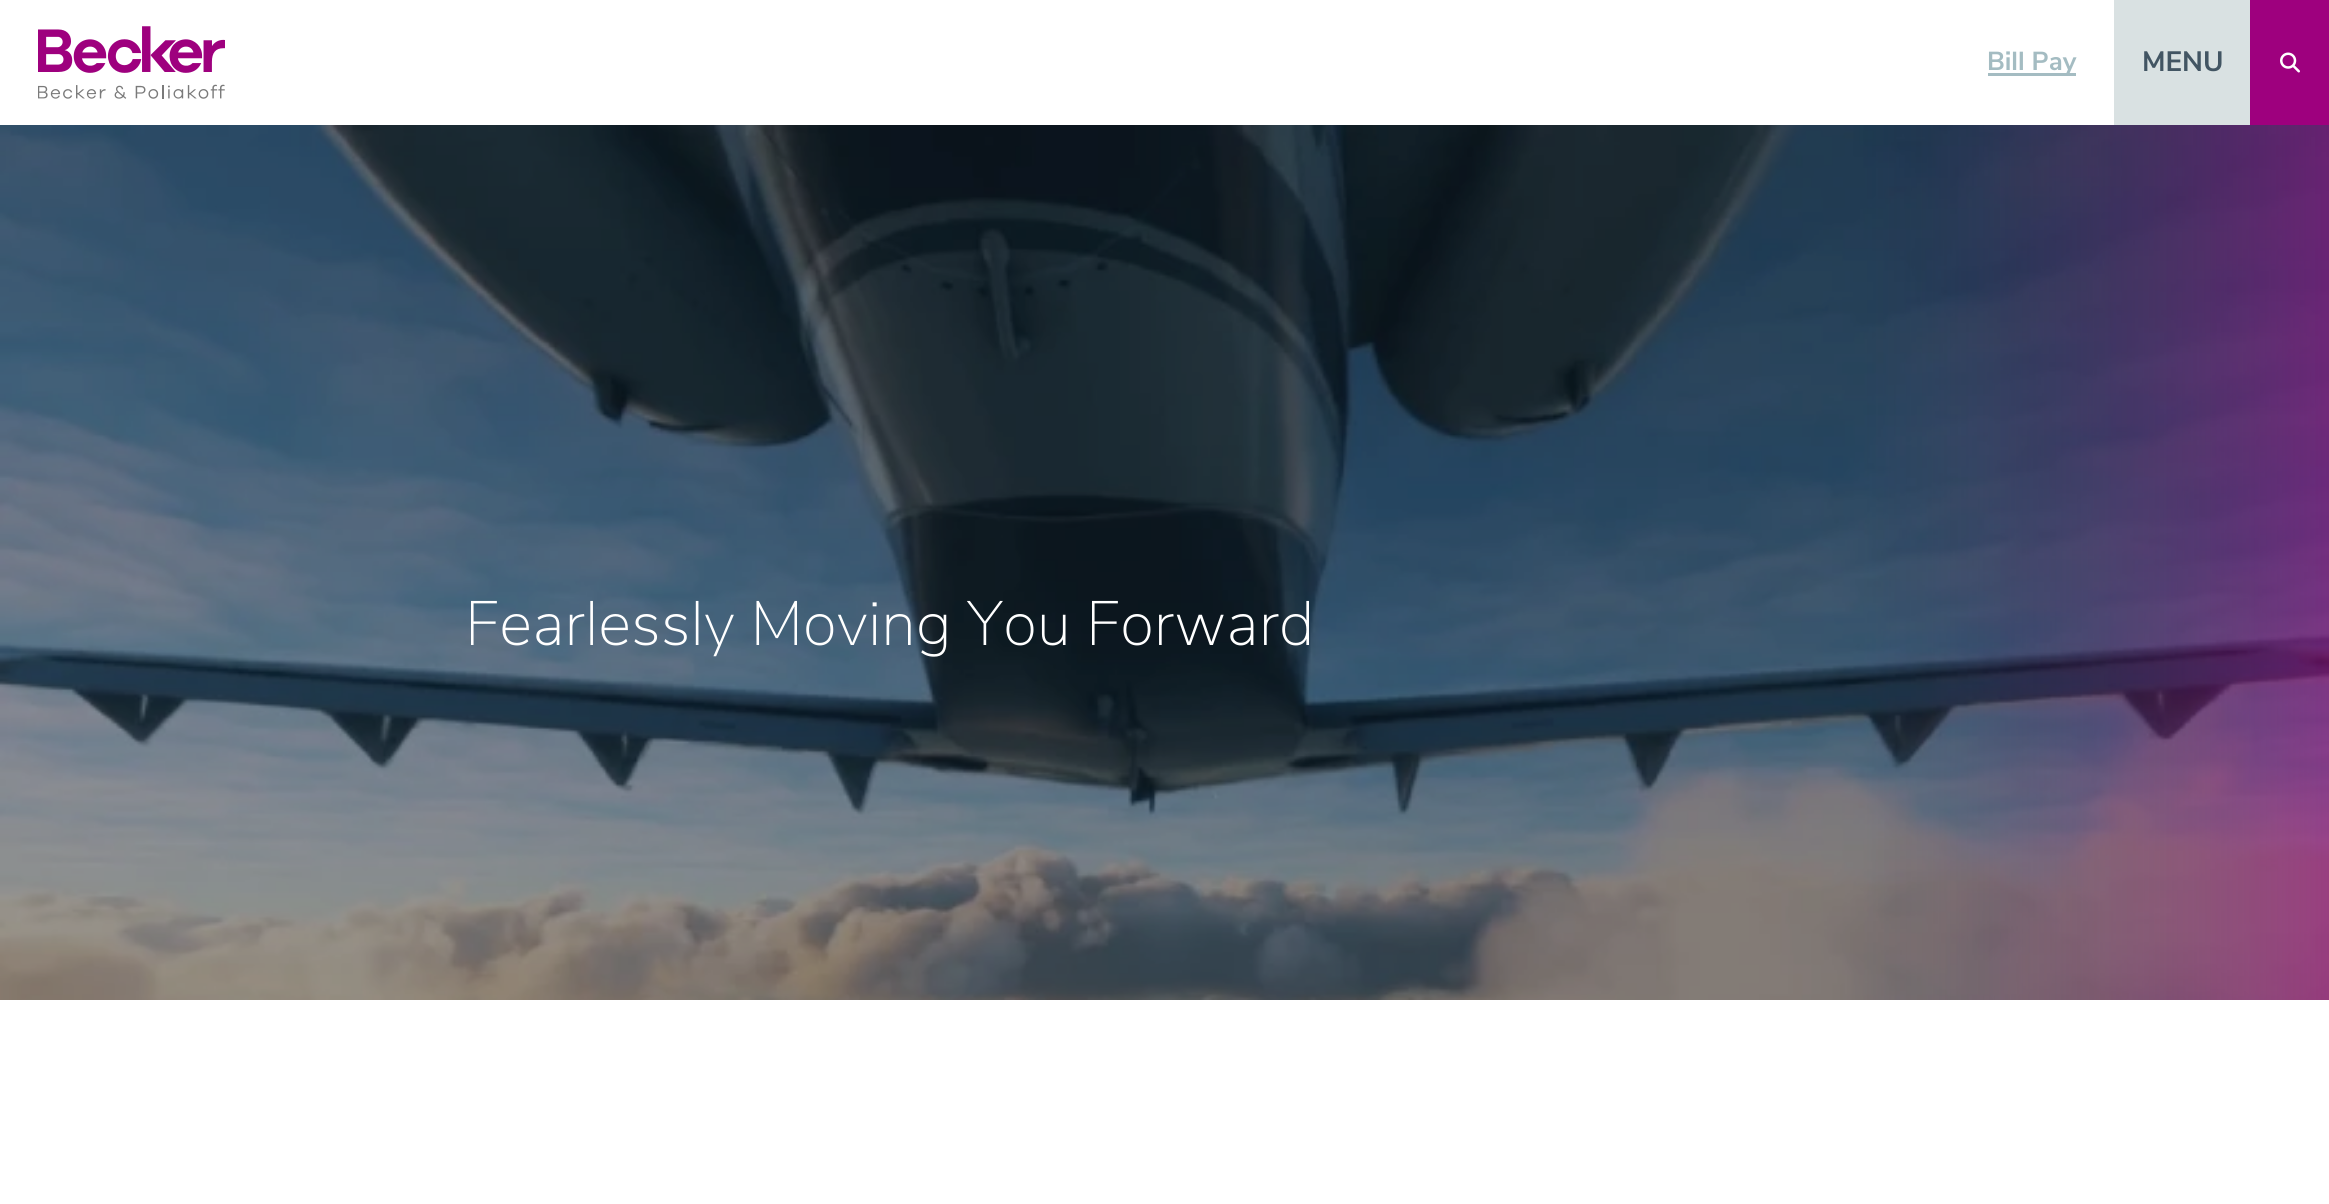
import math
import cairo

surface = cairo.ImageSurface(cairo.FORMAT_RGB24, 2329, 1204)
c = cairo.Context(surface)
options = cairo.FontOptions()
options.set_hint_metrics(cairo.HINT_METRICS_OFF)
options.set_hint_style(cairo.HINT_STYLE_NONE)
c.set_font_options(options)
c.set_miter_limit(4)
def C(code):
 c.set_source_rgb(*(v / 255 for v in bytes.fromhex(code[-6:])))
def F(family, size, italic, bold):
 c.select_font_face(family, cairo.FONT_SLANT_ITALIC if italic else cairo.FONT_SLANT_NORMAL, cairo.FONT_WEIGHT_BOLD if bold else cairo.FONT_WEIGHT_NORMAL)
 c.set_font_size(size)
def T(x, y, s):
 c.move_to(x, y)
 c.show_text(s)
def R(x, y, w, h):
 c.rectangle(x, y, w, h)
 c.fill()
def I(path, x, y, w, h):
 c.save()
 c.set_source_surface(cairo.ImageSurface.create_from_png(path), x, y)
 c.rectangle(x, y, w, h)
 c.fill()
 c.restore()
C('ffffff')
c.paint()
I('1.png',38,26,187,73)
C('a4bcc2')
R(1988,73,88,3)
F('Nunito Sans',26,0,1)
T(1987,70,'Bill Pay')
C('d9e1e2')
R(2114,0,136,125)
F('Nunito Sans',28,0,1)
C('425563')
T(2142,71,'MENU')
C('9e007e')
R(2250,0,79,125)
I('2.png',2280,52,20,21)
I('3.png',0,125,2329,875)
F('Nunito Sans ExtraLight',62.5,0,0)
C('ffffff')
T(465,645,'Fearlessly Moving You Forward')
surface.write_to_png('o.png')
